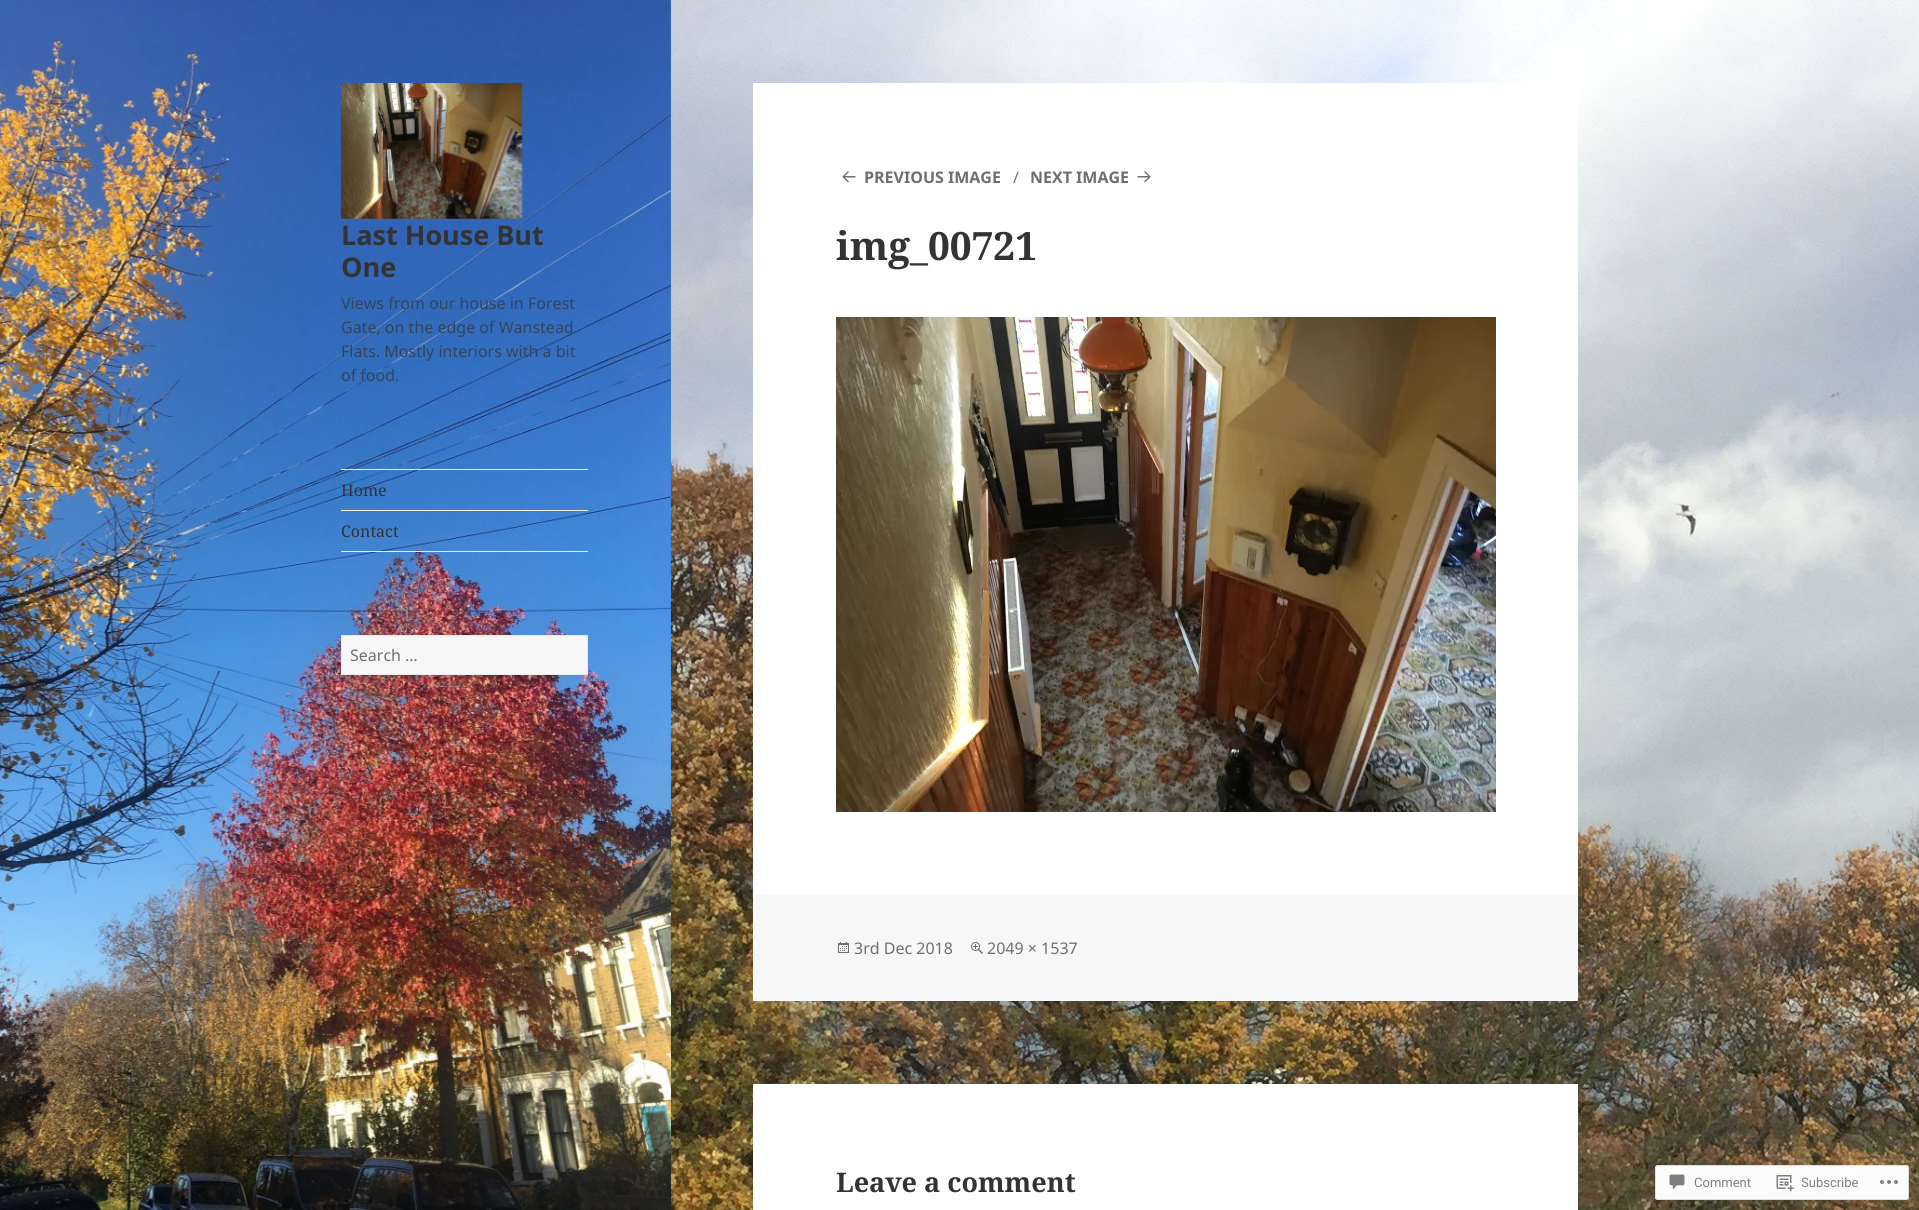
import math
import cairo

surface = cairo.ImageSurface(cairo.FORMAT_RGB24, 1919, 1210)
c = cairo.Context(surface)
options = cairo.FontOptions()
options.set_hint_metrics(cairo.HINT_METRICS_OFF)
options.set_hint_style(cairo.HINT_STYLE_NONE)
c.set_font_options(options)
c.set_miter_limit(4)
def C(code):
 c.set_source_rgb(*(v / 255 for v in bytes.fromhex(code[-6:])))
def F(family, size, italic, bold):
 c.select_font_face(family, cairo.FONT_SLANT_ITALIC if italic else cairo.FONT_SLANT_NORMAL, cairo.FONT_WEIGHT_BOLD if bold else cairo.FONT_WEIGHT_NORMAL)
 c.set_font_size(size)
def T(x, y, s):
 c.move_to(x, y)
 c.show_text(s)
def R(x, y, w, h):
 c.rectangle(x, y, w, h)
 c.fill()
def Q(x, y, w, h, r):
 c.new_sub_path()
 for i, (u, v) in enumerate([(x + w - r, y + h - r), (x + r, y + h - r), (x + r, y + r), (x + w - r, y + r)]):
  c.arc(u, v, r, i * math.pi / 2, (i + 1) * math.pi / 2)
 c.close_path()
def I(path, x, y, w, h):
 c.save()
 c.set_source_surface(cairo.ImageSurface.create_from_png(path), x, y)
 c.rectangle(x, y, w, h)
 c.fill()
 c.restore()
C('ffffff')
c.paint()
I('1.png',670,0,1249,1210)
I('2.png',0,0,671,1210)
I('3.png',341,83,182,136)
F('Noto Sans',27,0,1)
C('333333')
T(341,245,'Last House But')
T(341,277,'One')
F('Noto Sans',16,0,0)
C('33445c')
T(341,309,'Views from our house in Forest')
T(341,333,'Gate, on the edge of Wanstead')
T(341,357,'Flats. Mostly interiors with a bit')
T(341,381,'of food.')
C('eaeaea')
R(341,469,247,1)
R(341,551,247,1)
F('Noto Serif',16,0,0)
C('333333')
T(341,496,'Home')
C('eaeaea')
R(341,510,247,1)
C('333333')
T(341,537,'Contact')
C('f7f7f7')
c.rectangle(341.5,635.5,246,39)
c.fill_preserve()
C('eaeaea')
c.set_line_width(1)
c.stroke()
F('Noto Sans',16,0,0)
C('6e6e6e')
T(350,661,'Search …')
C('ffffff')
R(753,83,825,812)
I('4.png',842,171,14,12)
F('Noto Sans',16,0,1)
C('6e6e6e')
T(864,183,'PREVIOUS IMAGE')
F('Noto Sans',16,0,0)
T(1013,183,'∕')
F('Noto Sans',16,0,1)
T(1030,183,'NEXT IMAGE')
I('5.png',1137,171,14,12)
F('Noto Serif',39,0,1)
C('333333')
T(836,260,'img_00721')
I('6.png',836,317,660,495)
C('f7f7f7')
R(753,895,825,106)
I('7.png',838,942,11,11)
F('Noto Sans',16,0,0)
C('6e6e6e')
T(854,954,'3rd Dec 2018')
I('8.png',971,942,12,12)
T(987,954,'2049 × 1537')
C('ffffff')
R(753,1084,825,126)
F('Noto Serif',27,0,1)
C('333333')
T(836,1192,'Leave a comment')
c.set_source_rgba(1,1,1,0.98)
Q(1655,1165,254,35,3)
c.fill()
Q(1655.5,1165.5,253,34,2.5)
c.set_source_rgba(0.863,0.863,0.871,0.98)
c.stroke()
I('9.png',1669,1174,16,16)
F('Roboto',13,0,0)
C('7b7f84')
T(1694,1187,'Comment')
I('10.png',1776,1175,18,17)
T(1801,1187,'Subscribe')
I('11.png',1880,1180,18,4)
surface.write_to_png('o.png')
